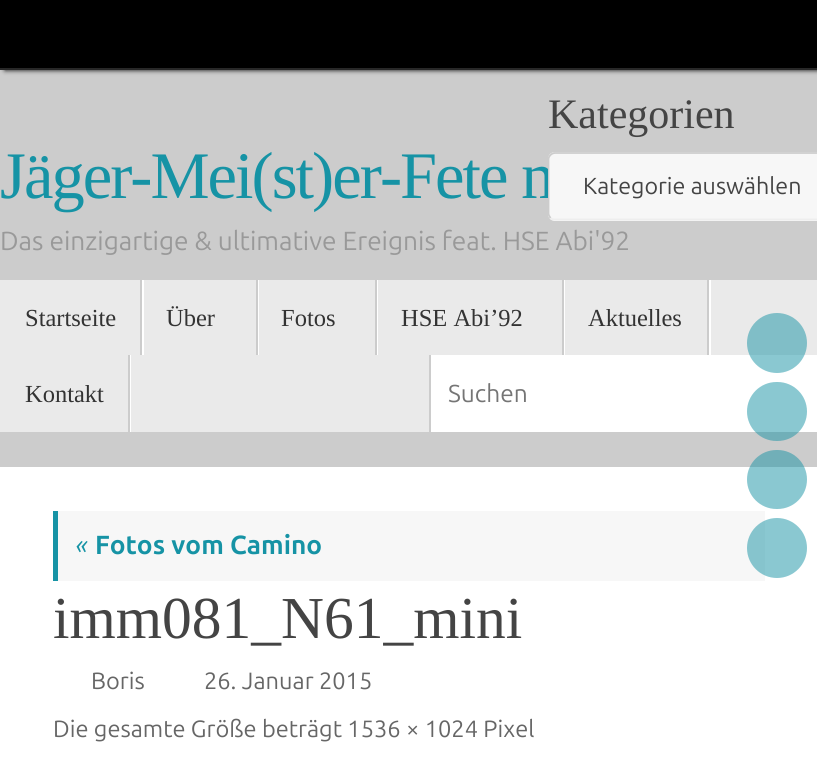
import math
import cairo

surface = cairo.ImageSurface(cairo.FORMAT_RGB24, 817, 760)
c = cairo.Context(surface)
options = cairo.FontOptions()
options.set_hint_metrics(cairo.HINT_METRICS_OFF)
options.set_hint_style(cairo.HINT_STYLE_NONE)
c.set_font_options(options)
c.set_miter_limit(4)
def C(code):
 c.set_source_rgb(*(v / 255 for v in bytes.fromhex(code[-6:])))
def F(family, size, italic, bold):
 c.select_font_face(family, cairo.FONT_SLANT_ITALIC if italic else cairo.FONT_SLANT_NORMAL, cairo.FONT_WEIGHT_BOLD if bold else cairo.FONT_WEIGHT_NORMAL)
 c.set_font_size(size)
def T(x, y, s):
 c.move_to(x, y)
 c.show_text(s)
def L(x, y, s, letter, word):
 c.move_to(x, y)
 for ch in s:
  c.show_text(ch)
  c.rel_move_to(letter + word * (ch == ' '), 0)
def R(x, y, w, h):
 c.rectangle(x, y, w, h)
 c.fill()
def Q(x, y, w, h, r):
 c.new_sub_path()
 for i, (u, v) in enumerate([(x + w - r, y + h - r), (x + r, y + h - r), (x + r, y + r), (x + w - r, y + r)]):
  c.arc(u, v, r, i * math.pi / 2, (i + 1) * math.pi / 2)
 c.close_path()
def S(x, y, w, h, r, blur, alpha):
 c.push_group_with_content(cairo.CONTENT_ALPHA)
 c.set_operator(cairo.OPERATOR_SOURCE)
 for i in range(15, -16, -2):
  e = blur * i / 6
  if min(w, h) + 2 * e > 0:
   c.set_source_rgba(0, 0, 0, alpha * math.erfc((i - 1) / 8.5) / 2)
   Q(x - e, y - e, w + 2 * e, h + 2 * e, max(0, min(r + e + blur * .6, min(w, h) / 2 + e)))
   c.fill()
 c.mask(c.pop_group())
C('cccccc')
c.paint()
C('000000')
S(5,0,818,70,0,2.5,1)
C('000000')
R(0,0,817,68)
C('282828')
R(0,68,817,2)
F('Liberation Serif',66.5,0,0)
C('1693a5')
L(0,198,'Jäger-Mei(st)er-Fete m',-2,0)
F('Ubuntu',26.25,0,0)
C('999999')
T(0,250,'Das einzigartige & ultimative Ereignis feat. HSE Abi\'92')
F('Liberation Serif',42,0,0)
C('444444')
T(548,128,'Kategorien')
C('f7f7f7')
c.new_path()
c.move_to(555,152)
c.line_to(817,152)
c.line_to(817,221)
c.line_to(555,221)
c.curve_to(551,221,548,218,548,214)
c.line_to(548,159)
c.curve_to(548,155,551,152,555,152)
c.close_path()
c.fill()
c.new_path()
c.move_to(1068.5,155)
c.curve_to(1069.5,156,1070,157.5,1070,159)
c.line_to(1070,213.5)
c.curve_to(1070,215,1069.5,216.5,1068.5,218)
c.curve_to(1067,219,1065.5,219.5,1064,219.5)
c.line_to(555,219.5)
c.curve_to(553,219.5,551.5,219,550.5,218)
C('eeeeee')
c.set_line_width(1.8)
c.stroke()
c.save()
c.rectangle(548,79,269,142)
c.clip()
c.new_path()
c.move_to(550.5,218)
c.curve_to(549.5,216.5,548.5,215,548.5,213.5)
c.line_to(548.5,159)
c.curve_to(548.5,157.5,549.5,156,550.5,155)
c.curve_to(551.5,154,553,153,555,153)
c.line_to(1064,153)
c.curve_to(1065.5,153,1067,154,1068.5,155)
C('cccccc')
c.stroke()
c.restore()
F('Ubuntu',23.25,0,0)
C('444444')
T(583,194,'Kategorie auswählen')
C('eaeaea')
R(0,280,817,152)
C('ffffff')
R(142,280,2,75)
C('cccccc')
R(140,280,2,75)
F('Liberation Serif',24.5,0,0)
C('333333')
T(25,326,'Startseite')
C('ffffff')
R(258,280,1,75)
C('cccccc')
R(256,280,2,75)
C('333333')
T(166,326,'Über')
C('ffffff')
R(377,280,1,75)
C('cccccc')
R(375,280,2,75)
C('333333')
T(281,326,'Fotos')
C('ffffff')
R(564,280,1,75)
C('cccccc')
R(562,280,2,75)
C('333333')
T(401,326,'HSE Abi’92')
C('ffffff')
R(709,280,2,75)
C('cccccc')
R(707,280,2,75)
C('333333')
T(588,326,'Aktuelles')
C('ffffff')
c.new_path()
c.move_to(2,355)
c.line_to(130,355)
c.line_to(130,432)
c.line_to(131,432)
c.line_to(131,355)
c.close_path()
c.fill()
C('cccccc')
R(128,355,2,77)
C('333333')
T(25,402,'Kontakt')
C('ffffff')
R(431,355,386,77)
C('cccccc')
R(429,355,2,77)
F('Ubuntu',24.5,0,0)
C('757575')
T(448,402,'Suchen')
c.set_source_rgba(0.086,0.576,0.647,0.5)
c.new_path()
c.arc(777,343,30,0,2 * math.pi)
c.fill()
Q(747,382,60,59,29.5)
c.fill()
C('ffffff')
R(0,467,817,293)
c.set_source_rgba(0.086,0.576,0.647,0.5)
Q(747,450,60,59,29.5)
c.fill()
C('f7f7f7')
R(58,511,707,70)
c.set_source_rgba(0.086,0.576,0.647,0.5)
c.arc(777,548,30,0,2 * math.pi)
c.fill()
C('1693a5')
R(53,511,5,70)
F('Ubuntu',26.25,1,0)
T(75,554,'«')
F('Ubuntu',26.25,0,1)
T(95,554,'Fotos vom Camino')
F('Liberation Serif',59.5,0,0)
C('444444')
T(53,638,'imm081_N61_mini')
F('Ubuntu',23.6,0,0)
C('666666')
T(91,689,'Boris')
T(204,689,'26. Januar 2015')
T(53,737,'Die gesamte Größe beträgt 1536 × 1024 Pixel')
surface.write_to_png('o.png')
